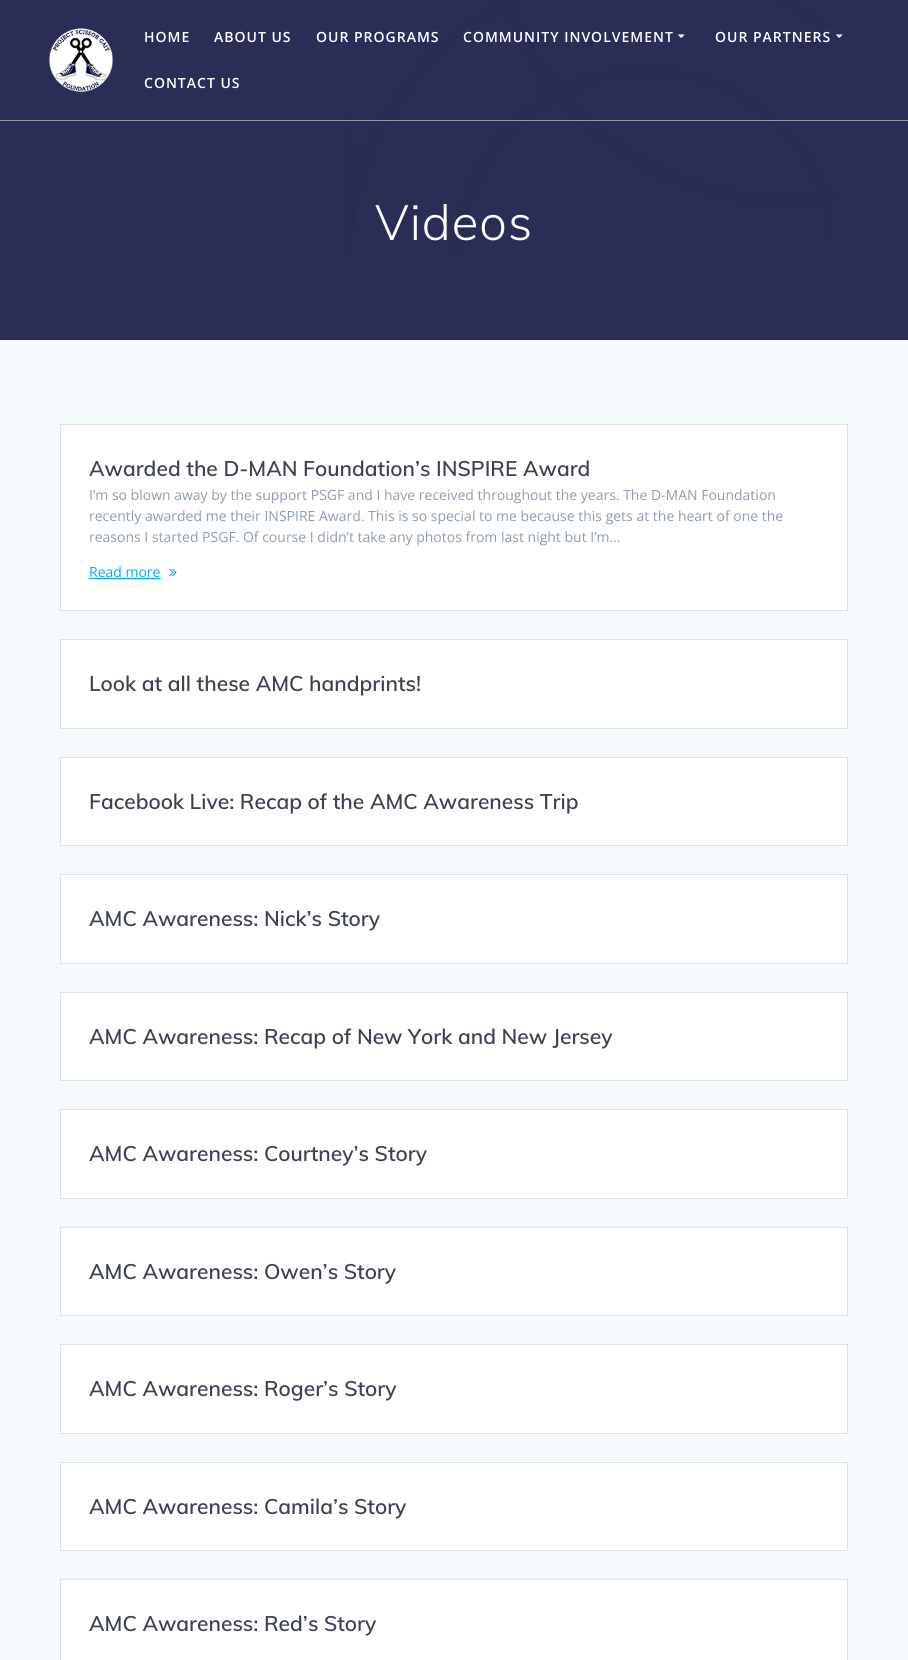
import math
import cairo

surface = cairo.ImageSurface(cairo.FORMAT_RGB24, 908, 1660)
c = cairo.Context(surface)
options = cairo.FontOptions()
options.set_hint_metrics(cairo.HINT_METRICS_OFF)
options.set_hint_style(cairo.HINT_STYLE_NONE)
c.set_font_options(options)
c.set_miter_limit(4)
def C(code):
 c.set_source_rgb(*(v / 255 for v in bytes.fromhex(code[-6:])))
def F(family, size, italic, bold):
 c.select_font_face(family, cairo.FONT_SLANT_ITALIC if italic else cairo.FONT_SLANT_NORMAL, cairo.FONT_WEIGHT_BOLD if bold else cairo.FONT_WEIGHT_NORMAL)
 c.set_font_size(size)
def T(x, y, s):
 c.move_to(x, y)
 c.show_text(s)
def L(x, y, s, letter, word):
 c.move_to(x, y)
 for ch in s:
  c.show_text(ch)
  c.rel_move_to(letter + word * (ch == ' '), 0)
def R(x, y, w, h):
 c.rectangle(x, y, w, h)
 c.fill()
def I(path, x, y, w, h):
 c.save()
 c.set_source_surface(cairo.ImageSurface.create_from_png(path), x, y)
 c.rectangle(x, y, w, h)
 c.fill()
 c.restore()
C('2a2e57')
c.paint()
I('3.png',344,0,490,257)
c.set_source_rgba(1,1,1,0.5)
R(0,120,908,1)
I('1.png',49,27,64,66)
F('Open Sans SemiBold',14,0,0)
C('ffffff')
L(144,42,'HOME',1,0)
L(214,42,'ABOUT US',1,0)
L(316,42,'OUR PROGRAMS',1,0)
L(463,42,'COMMUNITY INVOLVEMENT',1,0)
I('2.png',678,34,7,4)
L(715,42,'OUR PARTNERS',1,0)
I('2.png',836,34,7,4)
L(144,88,'CONTACT US',1,0)
F('Muli Light',49,0,0)
L(375,240,'Videos',1,0)
C('f5fafd')
R(0,340,908,1320)
C('ffffff')
c.rectangle(60.5,424.5,787,186)
c.fill_preserve()
C('e0e1e1')
c.set_line_width(1)
c.stroke()
F('Muli SemiBold',21,0,0)
C('3c424f')
T(89,476,'Awarded the D-MAN Foundation’s INSPIRE Award')
F('Open Sans',14,0,0)
C('8e9dae')
T(89,500,'I’m so blown away by the support PSGF and I have received throughout the years. The D-MAN Foundation')
T(89,521,'recently awarded me their INSPIRE Award. This is so special to me because this gets at the heart of one the')
T(89,542,'reasons I started PSGF. Of course I didn’t take any photos from last night but I’m…')
C('03a9f4')
T(89,577,'Read more')
R(89,578,72,1)
I('4.png',169,568,8,9)
C('ffffff')
c.rectangle(60.5,639.5,787,89)
c.fill_preserve()
C('e0e1e1')
c.stroke()
F('Muli SemiBold',21,0,0)
C('3c424f')
T(89,691,'Look at all these AMC handprints!')
C('ffffff')
c.rectangle(60.5,757.5,787,88)
c.fill_preserve()
C('e0e1e1')
c.stroke()
C('3c424f')
T(89,809,'Facebook Live: Recap of the AMC Awareness Trip')
C('ffffff')
c.rectangle(60.5,874.5,787,89)
c.fill_preserve()
C('e0e1e1')
c.stroke()
C('3c424f')
T(89,926,'AMC Awareness: Nick’s Story')
C('ffffff')
c.rectangle(60.5,992.5,787,88)
c.fill_preserve()
C('e0e1e1')
c.stroke()
C('3c424f')
T(89,1044,'AMC Awareness: Recap of New York and New Jersey')
C('ffffff')
c.rectangle(60.5,1109.5,787,89)
c.fill_preserve()
C('e0e1e1')
c.stroke()
C('3c424f')
T(89,1161,'AMC Awareness: Courtney’s Story')
C('ffffff')
c.rectangle(60.5,1227.5,787,88)
c.fill_preserve()
C('e0e1e1')
c.stroke()
C('3c424f')
T(89,1279,'AMC Awareness: Owen’s Story')
C('ffffff')
c.rectangle(60.5,1344.5,787,89)
c.fill_preserve()
C('e0e1e1')
c.stroke()
C('3c424f')
T(89,1396,'AMC Awareness: Roger’s Story')
C('ffffff')
c.rectangle(60.5,1462.5,787,88)
c.fill_preserve()
C('e0e1e1')
c.stroke()
C('3c424f')
T(89,1514,'AMC Awareness: Camila’s Story')
C('ffffff')
c.rectangle(60.5,1579.5,787,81)
c.fill_preserve()
C('e0e1e1')
c.stroke()
C('3c424f')
T(89,1631,'AMC Awareness: Red’s Story')
surface.write_to_png('o.png')
